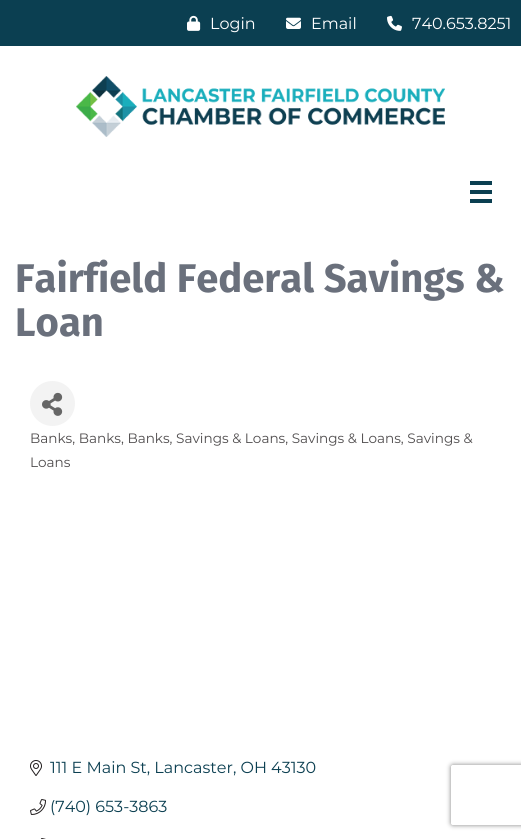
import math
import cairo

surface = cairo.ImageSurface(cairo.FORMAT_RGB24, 521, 839)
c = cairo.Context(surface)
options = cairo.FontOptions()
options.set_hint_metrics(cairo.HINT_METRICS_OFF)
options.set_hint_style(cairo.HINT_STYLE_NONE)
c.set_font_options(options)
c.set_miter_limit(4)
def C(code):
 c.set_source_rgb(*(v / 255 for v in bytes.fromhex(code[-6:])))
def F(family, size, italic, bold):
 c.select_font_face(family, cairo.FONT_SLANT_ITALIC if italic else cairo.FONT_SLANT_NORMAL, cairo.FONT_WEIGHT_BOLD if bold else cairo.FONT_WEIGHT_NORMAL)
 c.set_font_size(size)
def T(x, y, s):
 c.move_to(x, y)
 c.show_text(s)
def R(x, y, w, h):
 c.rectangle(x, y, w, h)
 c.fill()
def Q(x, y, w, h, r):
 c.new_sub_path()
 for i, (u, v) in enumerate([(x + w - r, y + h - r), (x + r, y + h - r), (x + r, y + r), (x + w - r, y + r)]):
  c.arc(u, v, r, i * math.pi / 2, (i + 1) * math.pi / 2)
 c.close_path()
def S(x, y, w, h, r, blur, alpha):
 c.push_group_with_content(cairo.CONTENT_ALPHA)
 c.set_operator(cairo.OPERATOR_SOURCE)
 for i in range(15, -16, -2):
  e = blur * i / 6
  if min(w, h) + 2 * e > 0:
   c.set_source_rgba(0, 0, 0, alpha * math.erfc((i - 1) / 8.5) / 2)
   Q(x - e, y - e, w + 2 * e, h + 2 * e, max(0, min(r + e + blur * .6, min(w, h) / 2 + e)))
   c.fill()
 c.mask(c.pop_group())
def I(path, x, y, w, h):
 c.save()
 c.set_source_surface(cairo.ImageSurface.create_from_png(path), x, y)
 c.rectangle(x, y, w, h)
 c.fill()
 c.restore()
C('0b3f51')
c.paint()
I('1.png',187,15,14,16)
F('Montserrat',16,0,0)
C('ffffff')
T(210,29,'Login')
I('2.png',286,17,15,12)
T(311,29,'Email')
I('3.png',387,15,15,16)
T(412,29,'740.653.8251')
R(0,46,521,793)
I('4.png',76,76,369,61)
C('0b3f51')
R(470,181,22,4)
R(470,190,22,4)
R(470,199,22,4)
F('Fira Sans',40,0,1)
C('6a707c')
T(15,292,'Fairfield Federal Savings &')
T(15,336,'Loan')
C('f3f3f3')
c.new_path()
c.arc(52.5,403.5,22.5,0,2 * math.pi)
c.fill()
I('5.png',42,392,21,24)
F('Montserrat',13.6,0,0)
C('4f4c4d')
T(30,443,'Banks, Banks, Banks, Savings & Loans, Savings & Loans, Savings &')
T(30,467,'Loans')
I('6.png',30,760,12,16)
F('Montserrat',16,0,0)
C('0b3f51')
T(50,773,'111 E Main St, Lancaster, OH 43130')
I('7.png',30,799,16,16)
T(50,812,'(740) 653-3863')
I('8.png',40,838,6,1)
c.save()
c.set_fill_rule(cairo.FILL_RULE_EVEN_ODD)
c.new_path()
c.move_to(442,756)
c.line_to(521,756)
c.line_to(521,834)
c.line_to(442,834)
c.close_path()
c.move_to(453,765)
c.line_to(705,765)
c.curve_to(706,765,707,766,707,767)
c.line_to(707,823)
c.curve_to(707,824,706,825,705,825)
c.line_to(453,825)
c.curve_to(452,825,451,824,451,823)
c.line_to(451,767)
c.curve_to(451,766,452,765,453,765)
c.close_path()
c.clip()
C('808080')
S(451,765,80,60,2,2.5,1)
c.restore()
surface.write_to_png('o.png')
